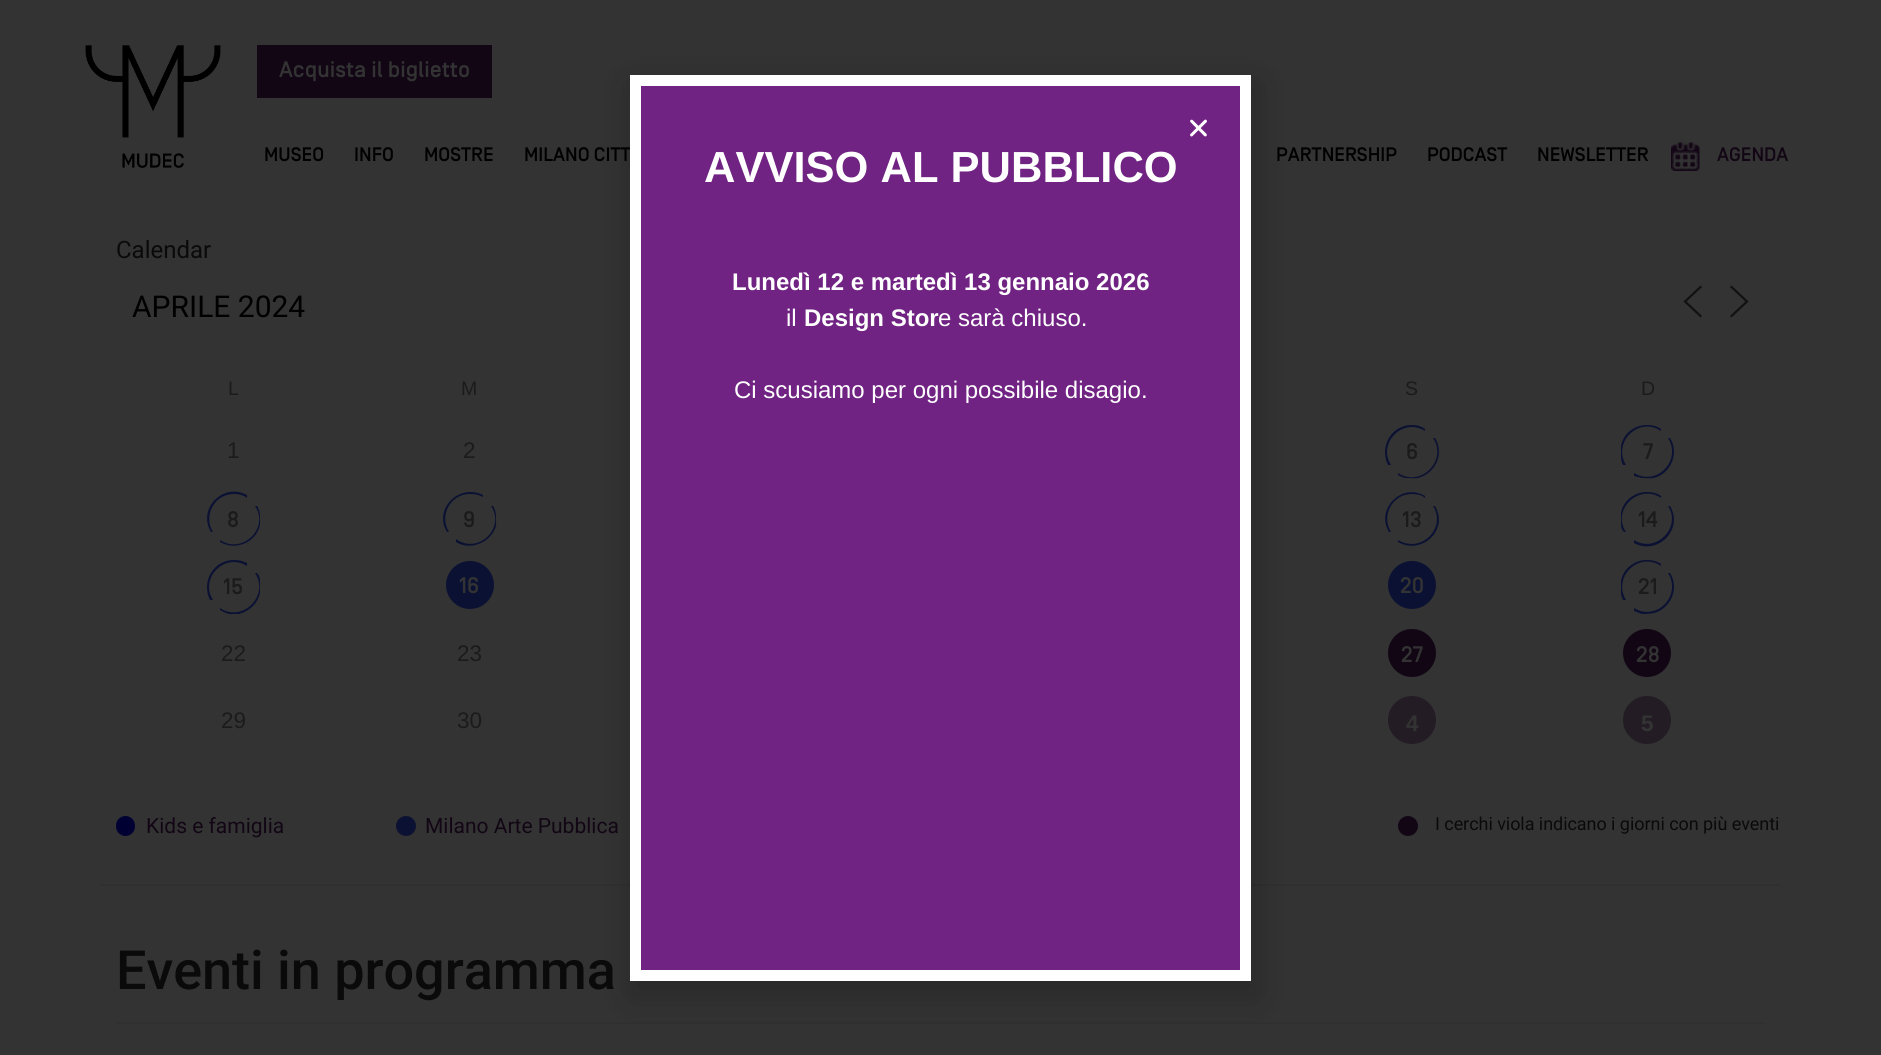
import math
import cairo

surface = cairo.ImageSurface(cairo.FORMAT_RGB24, 1881, 1055)
c = cairo.Context(surface)
options = cairo.FontOptions()
options.set_hint_metrics(cairo.HINT_METRICS_OFF)
options.set_hint_style(cairo.HINT_STYLE_NONE)
c.set_font_options(options)
c.set_miter_limit(4)
def C(code):
 c.set_source_rgb(*(v / 255 for v in bytes.fromhex(code[-6:])))
def F(family, size, italic, bold):
 c.select_font_face(family, cairo.FONT_SLANT_ITALIC if italic else cairo.FONT_SLANT_NORMAL, cairo.FONT_WEIGHT_BOLD if bold else cairo.FONT_WEIGHT_NORMAL)
 c.set_font_size(size)
def T(x, y, s):
 c.move_to(x, y)
 c.show_text(s)
def L(x, y, s, letter, word):
 c.move_to(x, y)
 for ch in s:
  c.show_text(ch)
  c.rel_move_to(letter + word * (ch == ' '), 0)
def R(x, y, w, h):
 c.rectangle(x, y, w, h)
 c.fill()
def Q(x, y, w, h, r):
 c.new_sub_path()
 for i, (u, v) in enumerate([(x + w - r, y + h - r), (x + r, y + h - r), (x + r, y + r), (x + w - r, y + r)]):
  c.arc(u, v, r, i * math.pi / 2, (i + 1) * math.pi / 2)
 c.close_path()
def S(x, y, w, h, r, blur, alpha):
 c.push_group_with_content(cairo.CONTENT_ALPHA)
 c.set_operator(cairo.OPERATOR_SOURCE)
 for i in range(15, -16, -2):
  e = blur * i / 6
  if min(w, h) + 2 * e > 0:
   c.set_source_rgba(0, 0, 0, alpha * math.erfc((i - 1) / 8.5) / 2)
   Q(x - e, y - e, w + 2 * e, h + 2 * e, max(0, min(r + e + blur * .6, min(w, h) / 2 + e)))
   c.fill()
 c.mask(c.pop_group())
def I(path, x, y, w, h):
 c.save()
 c.set_source_surface(cairo.ImageSurface.create_from_png(path), x, y)
 c.rectangle(x, y, w, h)
 c.fill()
 c.restore()
C('333333')
c.paint()
I('1.png',85,45,136,123)
C('120615')
R(257,45,235,53)
F('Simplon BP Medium',22.5,0,0)
C('333333')
T(279,77,'Acquista il biglietto')
F('Simplon BP Medium',19.5,0,0)
C('000000')
T(264,161,'MUSEO')
T(354,161,'INFO')
T(424,161,'MOSTRE')
T(524,161,'MILANO CITT')
T(1276,161,'PARTNERSHIP')
T(1427,161,'PODCAST')
T(1537,161,'NEWSLETTER')
I('2.png',1671,142,29,29)
C('120615')
T(1717,161,'AGENDA')
C('303030')
R(101,884,1680,2)
R(116,1022,1650,2)
C('000000')
S(629,83,630,915,0,17,.2)
C('702382')
c.rectangle(635.5,80.5,610,895)
c.fill_preserve()
C('ffffff')
c.set_line_width(11)
c.stroke()
I('3.png',1190,119,17,18)
F('Liberation Sans',43.5,0,1)
T(704,182,'AVVISO AL PUBBLICO')
F('Liberation Sans',24,0,1)
T(732,290,'Lunedì 12 e martedì 13 gennaio 2026')
F('Liberation Sans',24,0,0)
T(786,326,'il')
F('Liberation Sans',24,0,1)
T(804,326,'Design Stor')
F('Liberation Sans',24,0,0)
T(938,326,'e sarà chiuso.')
T(734,398,'Ci scusiamo per ogni possibile disagio.')
F('Roboto',24,0,0)
C('0a0a0a')
T(116,258,'Calendar')
F('Roboto',30,0,0)
C('000000')
T(132,317,'APRILE 2024')
c.new_path()
c.move_to(1700.5,316)
c.line_to(1685,301.5)
c.line_to(1700.5,287)
C('111111')
c.set_line_width(2.2)
c.set_line_cap(cairo.LINE_CAP_SQUARE)
c.stroke()
c.new_path()
c.move_to(1731.5,316)
c.line_to(1747,301.5)
c.line_to(1731.5,287)
c.stroke()
F('Liberation Sans',19.5,0,0)
C('1b1b1b')
T(228,395,'L')
T(461,395,'M')
T(1405,395,'S')
T(1641,395,'D')
F('Liberation Sans',22.5,0,0)
T(227,458,'1')
T(463,458,'2')
C('0b1133')
c.set_fill_rule(cairo.FILL_RULE_EVEN_ODD)
c.new_path()
c.move_to(1407,478)
c.curve_to(1404,478,1401,477,1398,475)
c.line_to(1398,473)
c.curve_to(1421,488,1448,460,1433,438)
c.line_to(1435,438)
c.curve_to(1444,452,1437,471,1421,477)
c.curve_to(1417,479,1412,478,1407,478)
c.close_path()
c.move_to(1412,425)
c.curve_to(1391,425,1379,447,1388,465)
c.line_to(1391,465)
c.curve_to(1377,443,1403,417,1425,431)
c.line_to(1425,429)
c.curve_to(1421,426,1417,425,1412,425)
c.close_path()
c.fill()
F('Simplon BP Medium',22.5,0,0)
C('1b1b1b')
T(1406,459,'6')
C('0b1133')
c.new_path()
c.move_to(1647,425)
c.curve_to(1652,425,1657,426,1661,429)
c.line_to(1661,431)
c.curve_to(1639,416,1612,442,1626,465)
c.line_to(1623,465)
c.curve_to(1622,463,1621,460,1621,458)
c.line_to(1621,446)
c.curve_to(1623,434,1634,425,1647,425)
c.close_path()
c.move_to(1642,478)
c.line_to(1634,476)
c.line_to(1634,473)
c.curve_to(1657,487,1682,460,1668,438)
c.line_to(1670,438)
c.curve_to(1679,452,1672,471,1657,477)
c.curve_to(1652,479,1647,478,1642,478)
c.close_path()
c.fill()
C('1b1b1b')
T(1643,459,'7')
C('0b1133')
c.new_path()
c.move_to(260,525)
c.curve_to(256,543,235,551,220,542)
c.line_to(220,540)
c.curve_to(242,555,270,528,255,506)
c.line_to(257,506)
c.curve_to(261,512,260,518,260,525)
c.close_path()
c.move_to(234,494)
c.curve_to(214,494,203,516,213,532)
c.line_to(211,532)
c.curve_to(197,509,223,482,247,495)
c.line_to(247,498)
c.curve_to(243,495,239,494,234,494)
c.close_path()
c.fill()
C('1b1b1b')
T(227,527,'8')
C('0b1133')
c.new_path()
c.move_to(496,526)
c.curve_to(491,543,470,551,456,542)
c.line_to(456,539)
c.curve_to(478,555,506,528,491,506)
c.line_to(493,506)
c.curve_to(497,512,496,519,496,526)
c.close_path()
c.move_to(470,494)
c.curve_to(450,494,439,516,449,532)
c.line_to(447,532)
c.curve_to(433,509,459,483,483,495)
c.line_to(483,497)
c.curve_to(479,495,475,494,470,494)
c.close_path()
c.fill()
C('1b1b1b')
T(463,527,'9')
C('0b1133')
c.new_path()
c.move_to(1439,521)
c.curve_to(1437,541,1415,552,1398,542)
c.line_to(1398,540)
c.curve_to(1421,554,1447,528,1433,506)
c.line_to(1435,506)
c.curve_to(1438,511,1439,516,1439,521)
c.close_path()
c.move_to(1412,494)
c.curve_to(1392,494,1381,516,1391,532)
c.line_to(1389,532)
c.curve_to(1375,509,1402,482,1425,496)
c.line_to(1425,498)
c.curve_to(1422,495,1417,494,1412,494)
c.close_path()
c.fill()
C('1b1b1b')
T(1402,527,'13')
C('0b1133')
c.new_path()
c.move_to(1647,492)
c.curve_to(1634,492,1623,501,1621,513)
c.line_to(1621,525)
c.curve_to(1621,528,1622,530,1624,532)
c.line_to(1626,532)
c.curve_to(1611,510,1639,483,1661,498)
c.line_to(1661,496)
c.curve_to(1657,493,1652,492,1647,492)
c.close_path()
c.move_to(1670,506)
c.line_to(1668,506)
c.curve_to(1682,527,1656,554,1634,540)
c.line_to(1634,543)
c.curve_to(1658,556,1684,529,1670,506)
c.close_path()
c.fill()
C('1b1b1b')
T(1638,527,'14')
C('0b1133')
c.new_path()
c.move_to(229,614)
c.curve_to(226,613,223,612,220,610)
c.line_to(220,608)
c.curve_to(242,623,270,596,255,573)
c.line_to(257,573)
c.curve_to(259,575,260,578,260,581)
c.line_to(260,593)
c.curve_to(258,603,250,611,239,614)
c.close_path()
c.move_to(234,560)
c.curve_to(213,560,201,582,210,600)
c.line_to(213,600)
c.curve_to(199,578,225,552,247,566)
c.line_to(247,563)
c.curve_to(243,561,239,560,234,560)
c.close_path()
c.fill()
C('1b1b1b')
T(223,594,'15')
C('0b1133')
c.new_path()
c.arc(470,585,23,0,2 * math.pi)
c.fill_preserve()
c.set_line_width(2)
c.set_line_cap(cairo.LINE_CAP_BUTT)
c.stroke()
C('333333')
T(459,593,'16')
C('0b1133')
c.new_path()
c.arc(1412,585,23,0,2 * math.pi)
c.fill_preserve()
c.stroke()
C('333333')
T(1400,593,'20')
C('0b1133')
c.new_path()
c.move_to(1647,560)
c.curve_to(1652,560,1657,561,1661,564)
c.line_to(1661,566)
c.curve_to(1639,551,1612,577,1626,600)
c.line_to(1623,600)
c.curve_to(1622,598,1621,595,1621,593)
c.line_to(1621,581)
c.curve_to(1623,569,1634,560,1647,560)
c.close_path()
c.move_to(1642,614)
c.line_to(1634,611)
c.line_to(1634,608)
c.curve_to(1657,622,1682,595,1668,573)
c.line_to(1670,573)
c.curve_to(1679,587,1672,606,1657,612)
c.curve_to(1652,614,1647,614,1642,614)
c.close_path()
c.fill()
C('1b1b1b')
T(1638,594,'21')
F('Liberation Sans',22.5,0,0)
T(221,661,'22')
T(457,661,'23')
C('120615')
c.new_path()
c.arc(1412,653,23,0,2 * math.pi)
c.fill_preserve()
c.stroke()
F('Simplon BP Medium',22.5,0,0)
C('333333')
T(1401,662,'27')
C('120615')
c.new_path()
c.arc(1647,653,23,0,2 * math.pi)
c.fill_preserve()
c.stroke()
C('333333')
T(1636,662,'28')
F('Liberation Sans',22.5,0,0)
C('1b1b1b')
T(221,728,'29')
T(457,728,'30')
C('231c24')
c.new_path()
c.arc(1412,720,23,0,2 * math.pi)
c.fill_preserve()
c.stroke()
F('Liberation Sans',22.5,0,1)
C('333333')
T(1406,731,'4')
C('231c24')
c.new_path()
c.arc(1647,720,23,0,2 * math.pi)
c.fill_preserve()
c.stroke()
C('333333')
T(1641,731,'5')
C('000132')
Q(116,816,19,20,9.5)
c.fill()
F('Roboto',21,0,0)
C('120615')
T(146,833,'Kids e famiglia')
C('0b1133')
c.new_path()
c.arc(406,826,10,0,2 * math.pi)
c.fill()
C('120615')
T(425,833,'Milano Arte Pubblica')
c.new_path()
c.arc(1408,826,10,0,2 * math.pi)
c.fill()
F('Roboto',18,0,0)
C('0a0a0a')
L(1435,830,'I cerchi viola indicano i giorni con più eventi',-.05,0)
F('Roboto Medium',54,0,0)
L(116,989,'Eventi in programma',-.05,0)
surface.write_to_png('o.png')
